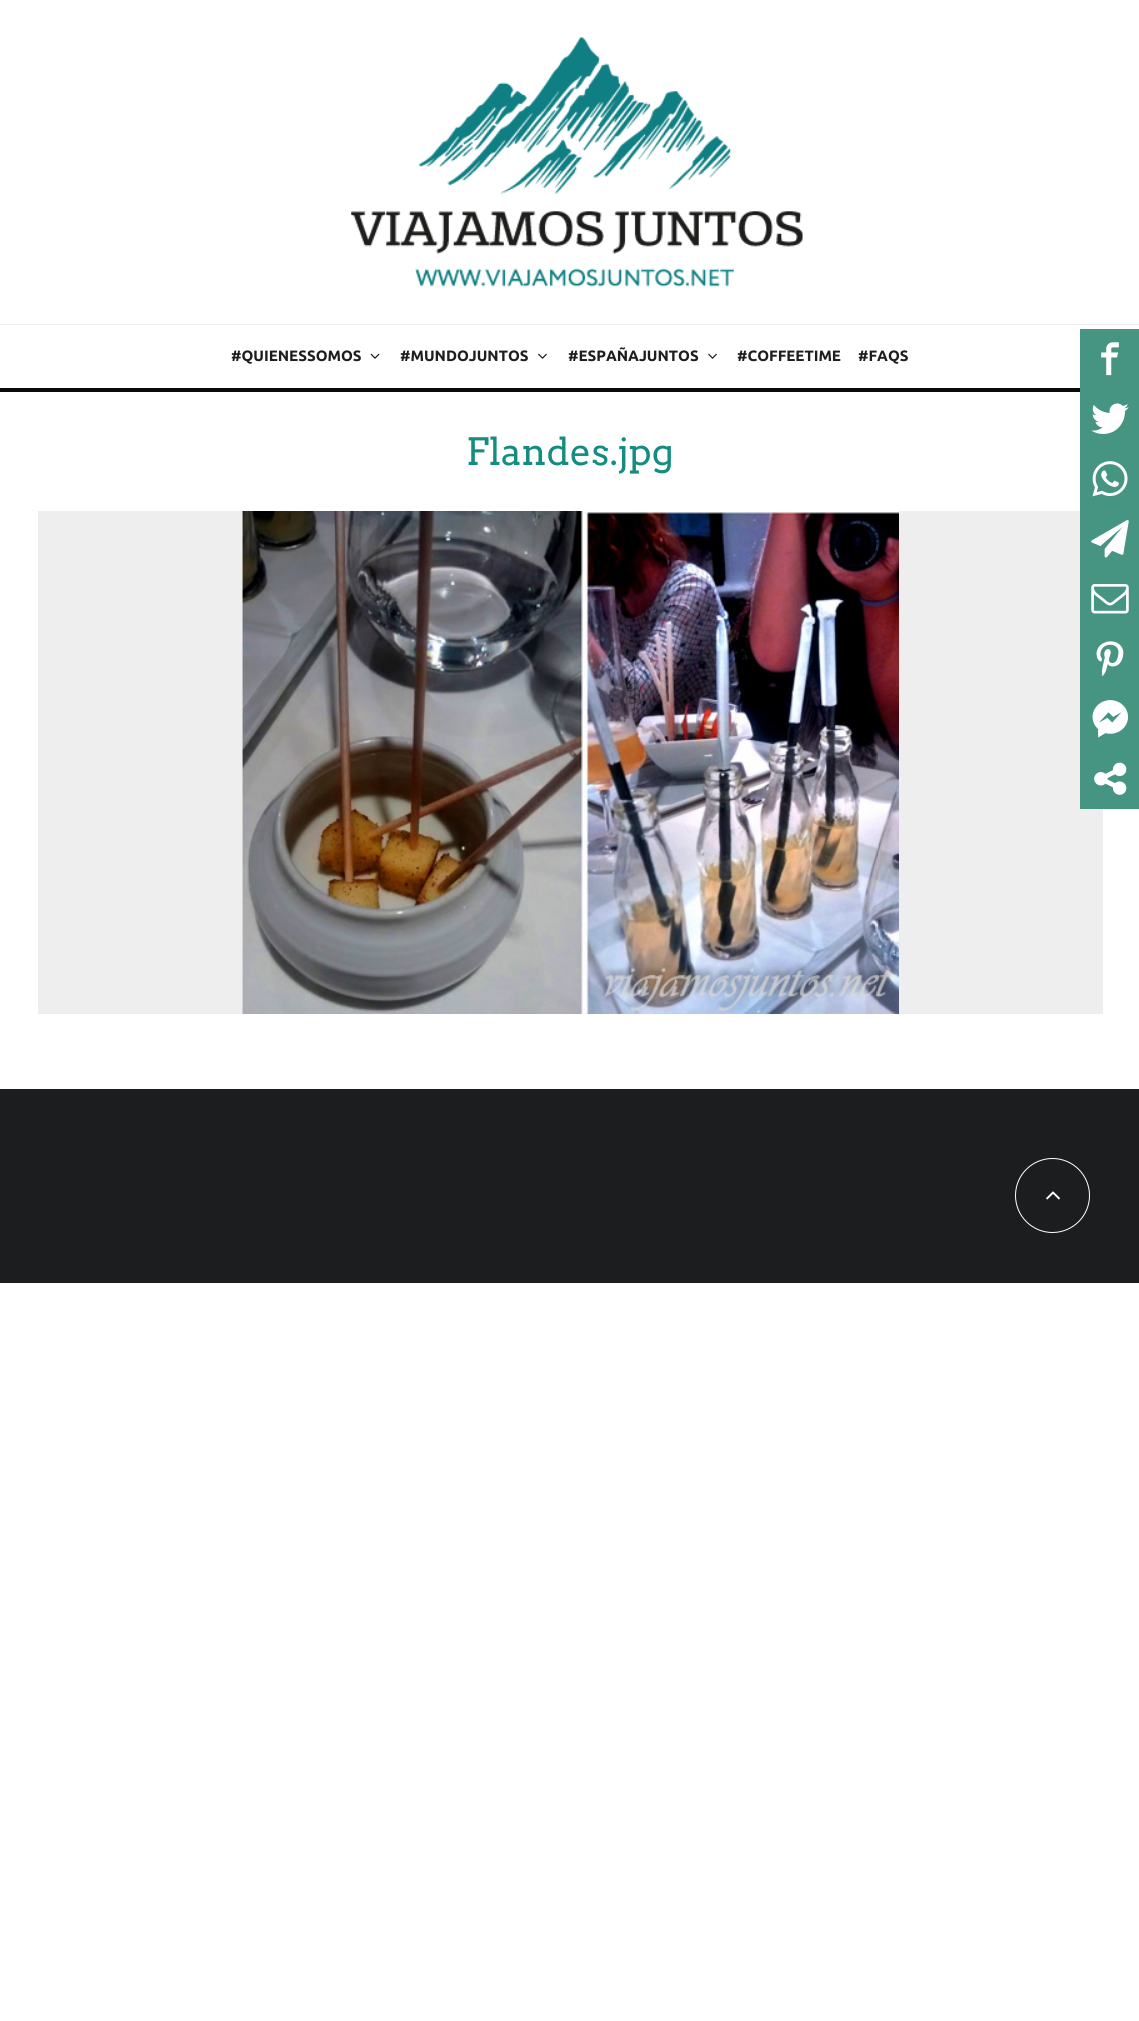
import math
import cairo

surface = cairo.ImageSurface(cairo.FORMAT_RGB24, 1139, 2021)
c = cairo.Context(surface)
options = cairo.FontOptions()
options.set_hint_metrics(cairo.HINT_METRICS_OFF)
options.set_hint_style(cairo.HINT_STYLE_NONE)
c.set_font_options(options)
c.set_miter_limit(4)
def C(code):
 c.set_source_rgb(*(v / 255 for v in bytes.fromhex(code[-6:])))
def F(family, size, italic, bold):
 c.select_font_face(family, cairo.FONT_SLANT_ITALIC if italic else cairo.FONT_SLANT_NORMAL, cairo.FONT_WEIGHT_BOLD if bold else cairo.FONT_WEIGHT_NORMAL)
 c.set_font_size(size)
def T(x, y, s):
 c.move_to(x, y)
 c.show_text(s)
def R(x, y, w, h):
 c.rectangle(x, y, w, h)
 c.fill()
def I(path, x, y, w, h):
 c.save()
 c.set_source_surface(cairo.ImageSurface.create_from_png(path), x, y)
 c.rectangle(x, y, w, h)
 c.fill()
 c.restore()
C('ffffff')
c.paint()
I('1.png',351,37,452,250)
C('eeeeee')
R(0,324,1139,1)
C('0a0a0a')
R(0,388,1080,4)
F('Ubuntu',15,0,1)
C('1e1e1e')
T(231,361,'#QUIENESSOMOS')
I('2.png',370,353,10,6)
T(400,361,'#MUNDOJUNTOS')
I('3.png',538,353,9,6)
T(568,361,'#ESPAÑAJUNTOS')
I('3.png',708,353,9,6)
T(737,361,'#COFFEETIME')
T(858,361,'#FAQS')
F('Arvo',37.5,0,0)
C('148c80')
T(466,465,'Flandes.jpg')
C('eeeeee')
R(38,511,1065,503)
I('4.png',242,511,657,503)
C('1c1d1e')
R(0,1089,1139,194)
c.arc(1052.5,1195.5,37,0,2 * math.pi)
C('ffffff')
c.set_line_width(1)
c.stroke()
I('5.png',1046,1191,14,9)
C('469583')
R(1080,329,59,480)
I('6.png',1101,342,18,34)
I('7.png',1091,403,38,31)
I('8.png',1092,461,36,36)
I('9.png',1091,520,38,38)
I('10.png',1091,584,38,30)
I('11.png',1096,641,28,36)
I('12.png',1092,700,37,38)
I('13.png',1094,762,33,33)
surface.write_to_png('o.png')
